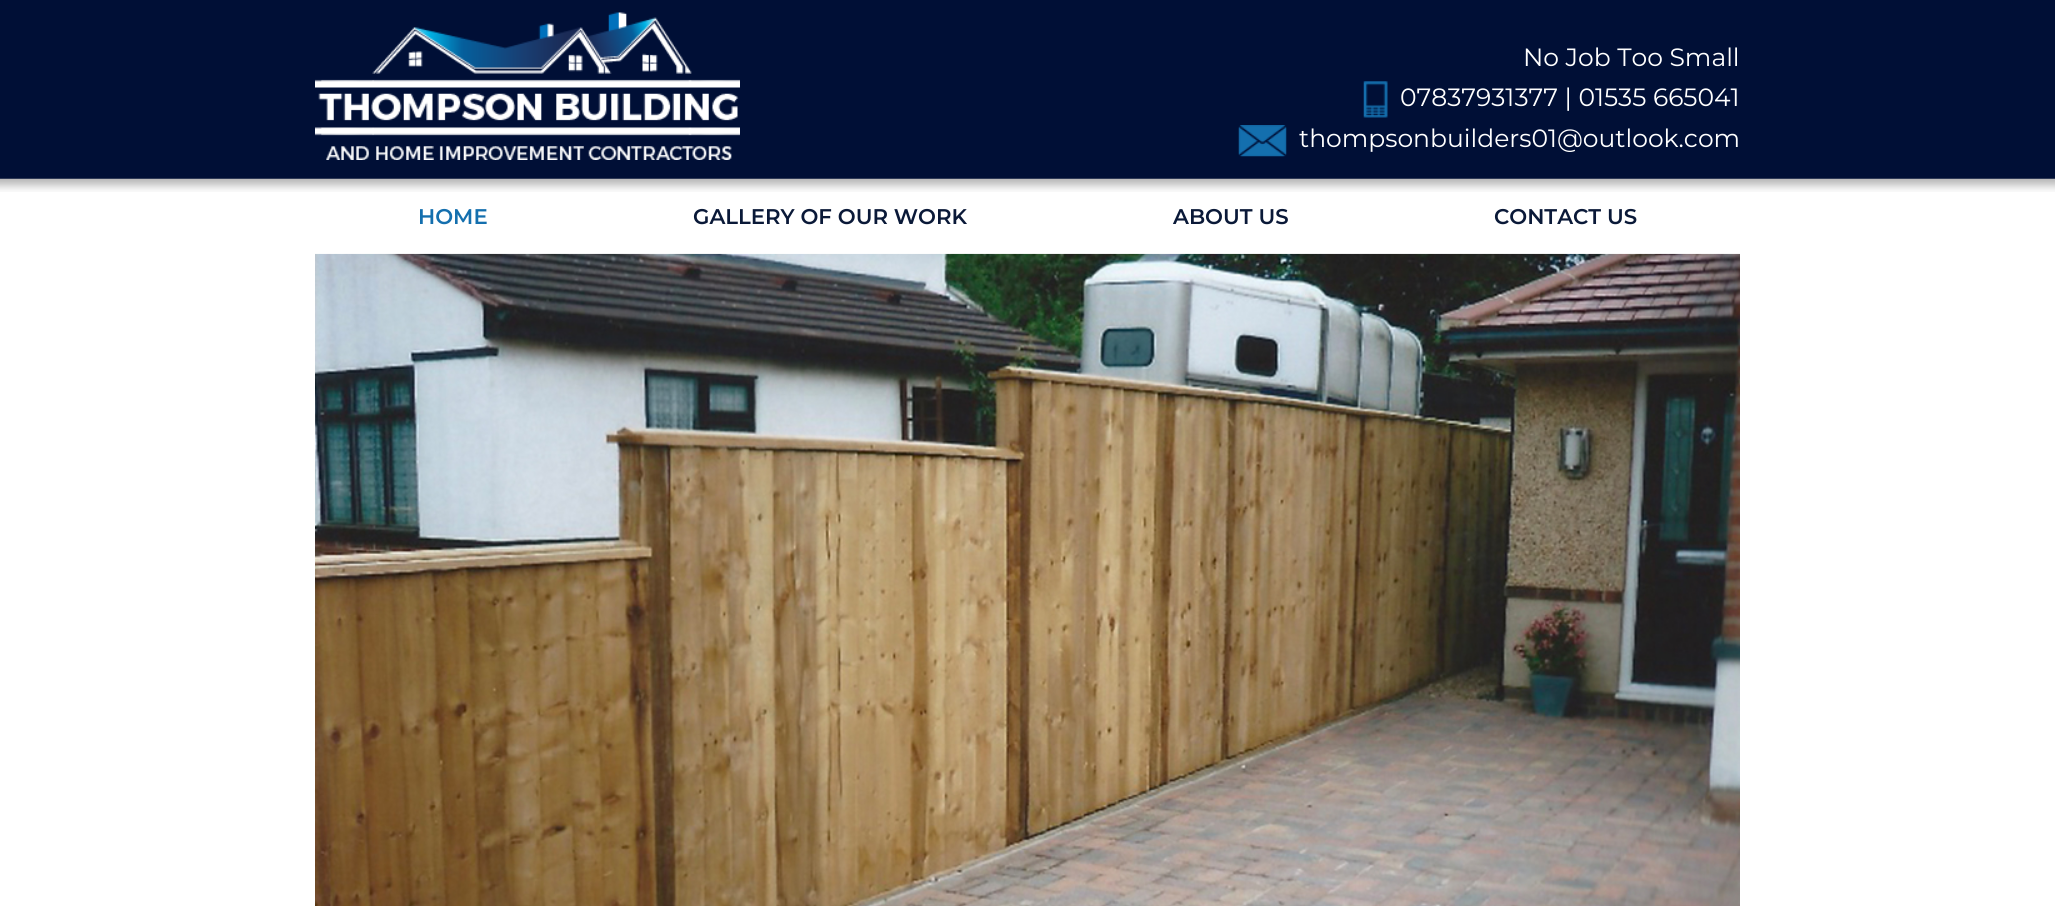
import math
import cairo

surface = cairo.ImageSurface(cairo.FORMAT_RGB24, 2055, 906)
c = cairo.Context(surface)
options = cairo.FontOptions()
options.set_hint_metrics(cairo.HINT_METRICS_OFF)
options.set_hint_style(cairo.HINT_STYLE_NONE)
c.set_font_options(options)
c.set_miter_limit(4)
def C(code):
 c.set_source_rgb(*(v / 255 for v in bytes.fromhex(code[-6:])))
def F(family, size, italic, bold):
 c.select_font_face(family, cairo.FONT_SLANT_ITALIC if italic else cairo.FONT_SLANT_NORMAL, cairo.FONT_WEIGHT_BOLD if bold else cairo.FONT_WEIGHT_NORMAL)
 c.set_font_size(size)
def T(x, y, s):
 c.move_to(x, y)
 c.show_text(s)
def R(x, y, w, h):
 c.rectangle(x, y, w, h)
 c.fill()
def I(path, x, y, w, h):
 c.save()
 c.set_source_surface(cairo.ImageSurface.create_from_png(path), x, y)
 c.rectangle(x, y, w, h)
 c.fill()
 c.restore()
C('ffffff')
c.paint()
C('000f36')
R(0,0,2055,179)
I('1.png',315,12,425,148)
F('Montserrat',25,0,0)
C('ffffff')
T(1523,66,'No Job Too Small')
I('2.png',1363,81,25,37)
T(1400,106,'07837931377 | 01535 665041')
I('3.png',1238,125,49,32)
T(1299,147,'thompsonbuilders01@outlook.com')
I('4.png',0,178,2055,14)
F('Montserrat SemiBold',21.25,0,0)
C('146fae')
T(418,224,'HOME')
C('0a1938')
T(693,224,'GALLERY OF OUR WORK')
T(1173,224,'ABOUT US')
T(1494,224,'CONTACT US')
I('5.png',315,253,1425,653)
surface.write_to_png('o.png')
